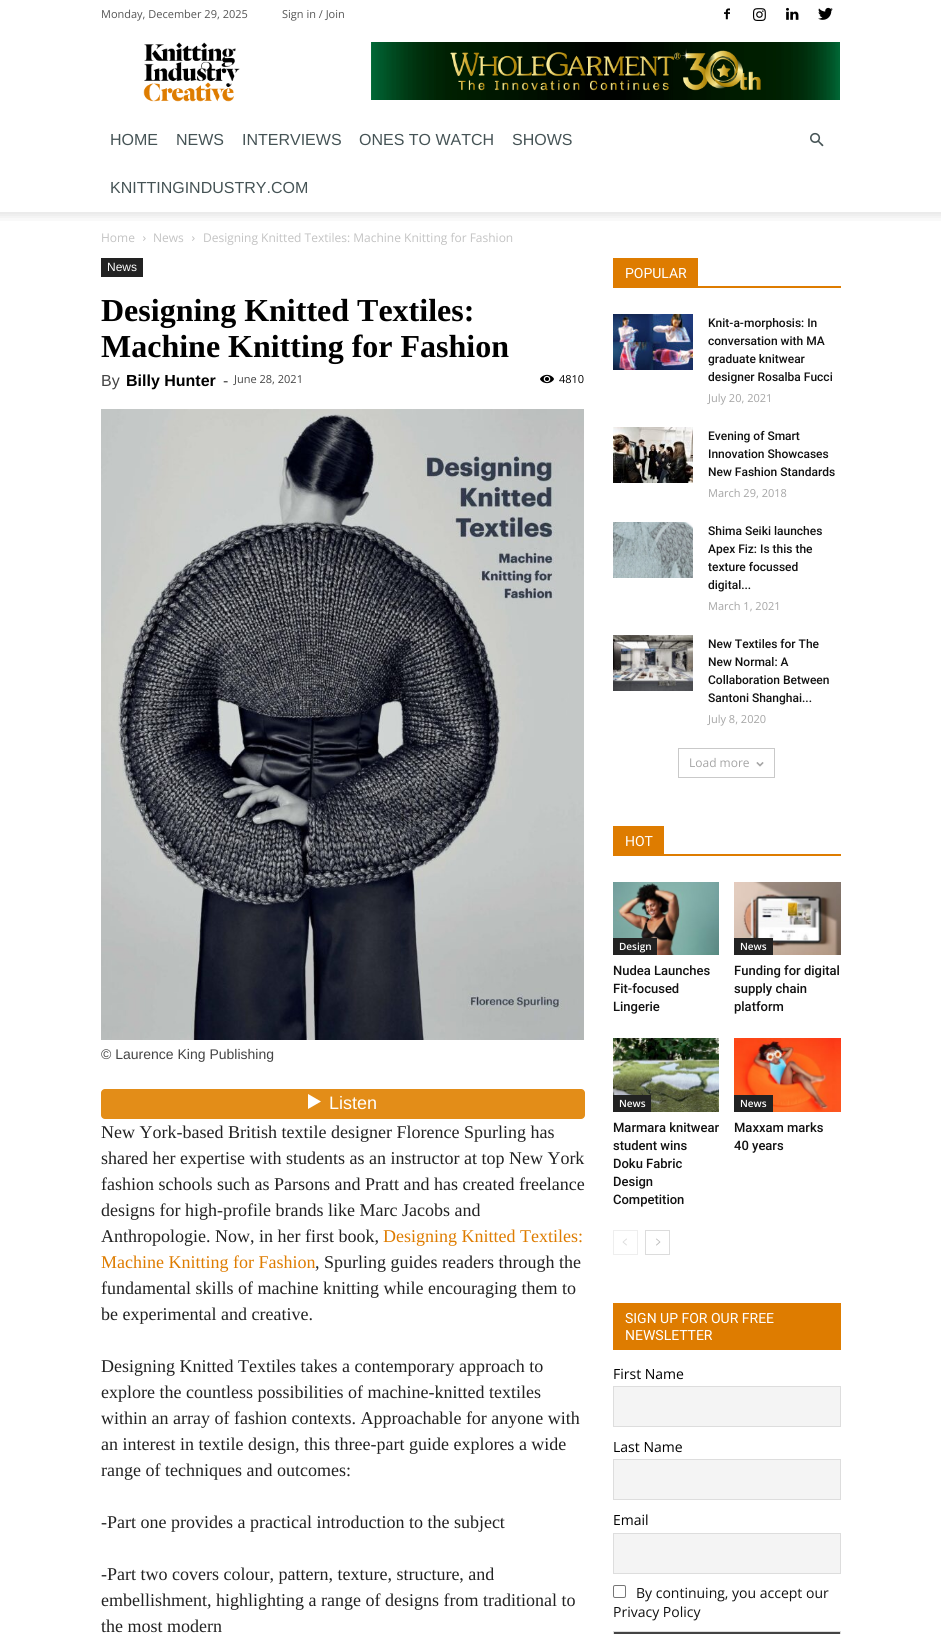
import math
import cairo

surface = cairo.ImageSurface(cairo.FORMAT_RGB24, 941, 1634)
c = cairo.Context(surface)
options = cairo.FontOptions()
options.set_hint_metrics(cairo.HINT_METRICS_OFF)
options.set_hint_style(cairo.HINT_STYLE_NONE)
c.set_font_options(options)
c.set_miter_limit(4)
def C(code):
 c.set_source_rgb(*(v / 255 for v in bytes.fromhex(code[-6:])))
def F(family, size, italic, bold):
 c.select_font_face(family, cairo.FONT_SLANT_ITALIC if italic else cairo.FONT_SLANT_NORMAL, cairo.FONT_WEIGHT_BOLD if bold else cairo.FONT_WEIGHT_NORMAL)
 c.set_font_size(size)
def T(x, y, s):
 c.move_to(x, y)
 c.show_text(s)
def R(x, y, w, h):
 c.rectangle(x, y, w, h)
 c.fill()
def Q(x, y, w, h, r):
 c.new_sub_path()
 for i, (u, v) in enumerate([(x + w - r, y + h - r), (x + r, y + h - r), (x + r, y + r), (x + w - r, y + r)]):
  c.arc(u, v, r, i * math.pi / 2, (i + 1) * math.pi / 2)
 c.close_path()
def I(path, x, y, w, h):
 c.save()
 c.set_source_surface(cairo.ImageSurface.create_from_png(path), x, y)
 c.rectangle(x, y, w, h)
 c.fill()
 c.restore()
C('ffffff')
c.paint()
F('Open Sans',11,0,0)
C('555555')
T(101,18,'Monday, December 29, 2025')
T(282,18,'Sign in / Join')
I('1.png',724,8,6,12)
I('2.png',753,8,13,13)
I('3.png',786,7,13,13)
I('4.png',818,7,15,13)
I('5.png',143,42,97,60)
I('6.png',371,42,469,58)
F('Liberation Sans',16,0,0)
C('455355')
T(110,145,'HOME')
T(176,145,'NEWS')
T(242,145,'INTERVIEWS')
T(359,145,'ONES TO WATCH')
T(512,145,'SHOWS')
T(110,193,'KNITTINGINDUSTRY.COM')
I('7.png',810,132,14,15)
I('8.png',0,212,941,9)
F('Open Sans',12,0,0)
C('c3c3c3')
T(101,242,'Home')
I('9.png',143,236,3,5)
T(153,242,'News')
I('9.png',192,236,3,5)
T(203,242,'Designing Knitted Textiles: Machine Knitting for Fashion')
C('222222')
R(101,258,42,19)
F('Liberation Sans',12,0,0)
C('ffffff')
T(107,271,'News')
F('Liberation Serif',32,0,1)
C('000000')
T(101,321,'Designing Knitted Textiles:')
T(101,357,'Machine Knitting for Fashion')
F('Liberation Sans',16,0,0)
C('444444')
T(101,386,'By')
F('Liberation Sans',16,0,1)
C('000000')
T(126,386,'Billy Hunter')
F('Liberation Sans',16,0,0)
C('444444')
T(223,386,'-')
F('Open Sans',11,0,0)
T(234,383,'June 28, 2021')
I('10.png',540,374,14,10)
C('000000')
T(559,383,'4810')
I('11.png',101,409,483,631)
F('Liberation Sans',14,0,0)
C('444444')
T(101,1059,'© Laurence King Publishing')
C('e38d18')
Q(101,1089,484,30,4)
c.fill()
C('ffffff')
c.new_path()
c.move_to(308,1094)
c.line_to(308,1109)
c.line_to(321,1101.5)
c.close_path()
c.fill()
F('Liberation Sans',18,0,0)
T(329,1109,'Listen')
F('Liberation Serif',18,0,0)
C('222222')
T(101,1138,'New York-based British textile designer Florence Spurling has')
T(101,1164,'shared her expertise with students as an instructor at top New York')
T(101,1190,'fashion schools such as Parsons and Pratt and has created freelance')
T(101,1216,'designs for high-profile brands like Marc Jacobs and')
T(101,1242,'Anthropologie. Now, in her first book,')
C('de7c00')
T(383,1242,'Designing Knitted Textiles:')
T(101,1268,'Machine Knitting for Fashion')
C('222222')
T(315,1268,', Spurling guides readers through the')
T(101,1294,'fundamental skills of machine knitting while encouraging them to')
T(101,1320,'be experimental and creative.')
T(101,1372,'Designing Knitted Textiles takes a contemporary approach to')
T(101,1398,'explore the countless possibilities of machine-knitted textiles')
T(101,1424,'within an array of fashion contexts. Approachable for anyone with')
T(101,1450,'an interest in textile design, this three-part guide explores a wide')
T(101,1476,'range of techniques and outcomes:')
T(101,1528,'-Part one provides a practical introduction to the subject')
T(101,1580,'-Part two covers colour, pattern, texture, structure, and')
T(101,1606,'embellishment, highlighting a range of designs from traditional to')
T(101,1632,'the most modern')
C('de7c00')
R(613,286,228,2)
R(613,258,85,28)
F('Roboto',14,0,0)
C('ffffff')
T(625,278,'POPULAR')
I('12.png',613,314,80,56)
F('Roboto Medium',12,0,0)
C('111111')
T(708,327,'Knit-a-morphosis: In')
T(708,345,'conversation with MA')
T(708,363,'graduate knitwear')
T(708,381,'designer Rosalba Fucci')
F('Open Sans',11,0,0)
C('a5a5a5')
T(708,402,'July 20, 2021')
I('13.png',613,427,80,56)
F('Roboto Medium',12,0,0)
C('111111')
T(708,440,'Evening of Smart')
T(708,458,'Innovation Showcases')
T(708,476,'New Fashion Standards')
F('Open Sans',11,0,0)
C('a5a5a5')
T(708,497,'March 29, 2018')
I('14.png',613,522,80,56)
F('Roboto Medium',12,0,0)
C('111111')
T(708,535,'Shima Seiki launches')
T(708,553,'Apex Fiz: Is this the')
T(708,571,'texture focussed')
T(708,589,'digital...')
F('Open Sans',11,0,0)
C('a5a5a5')
T(708,610,'March 1, 2021')
I('15.png',613,635,80,56)
F('Roboto Medium',12,0,0)
C('111111')
T(708,648,'New Textiles for The')
T(708,666,'New Normal: A')
T(708,684,'Collaboration Between')
T(708,702,'Santoni Shanghai...')
F('Open Sans',11,0,0)
C('a5a5a5')
T(708,723,'July 8, 2020')
c.rectangle(678.5,748.5,96,29)
C('c9c9c9')
c.set_line_width(1)
c.stroke()
F('Open Sans',12,0,0)
C('a5a5a5')
T(689,767,'Load more')
I('16.png',756,762,8,5)
C('de7c00')
R(613,854,228,2)
R(613,826,51,28)
F('Roboto',14,0,0)
C('ffffff')
T(625,846,'HOT')
I('17.png',613,882,106,73)
C('222222')
R(613,938,44,17)
F('Open Sans SemiBold',10,0,0)
C('ffffff')
T(619,950,'Design')
F('Roboto Medium',13,0,0)
C('111111')
T(613,975,'Nudea Launches')
T(613,993,'Fit-focused')
T(613,1011,'Lingerie')
I('18.png',734,882,107,73)
C('222222')
R(734,938,39,17)
F('Open Sans SemiBold',10,0,0)
C('ffffff')
T(740,950,'News')
F('Roboto Medium',13,0,0)
C('111111')
T(734,975,'Funding for digital')
T(734,993,'supply chain')
T(734,1011,'platform')
I('19.png',613,1038,106,74)
C('222222')
R(613,1095,38,17)
F('Open Sans SemiBold',10,0,0)
C('ffffff')
T(619,1107,'News')
F('Roboto Medium',13,0,0)
C('111111')
T(613,1132,'Marmara knitwear')
T(613,1150,'student wins')
T(613,1168,'Doku Fabric')
T(613,1186,'Design')
T(613,1204,'Competition')
I('20.png',734,1038,107,74)
C('222222')
R(734,1095,39,17)
F('Open Sans SemiBold',10,0,0)
C('ffffff')
T(740,1107,'News')
F('Roboto Medium',13,0,0)
C('111111')
T(734,1132,'Maxxam marks')
T(734,1150,'40 years')
c.rectangle(613.5,1230.5,24,24)
C('eeeeee')
c.stroke()
I('21.png',622,1238,5,8)
c.rectangle(645.5,1230.5,24,24)
C('dcdcdc')
c.stroke()
I('22.png',656,1238,5,8)
C('de7c00')
R(613,1303,228,47)
F('Roboto',14,0,0)
C('ffffff')
T(625,1323,'SIGN UP FOR OUR FREE')
T(625,1340,'NEWSLETTER')
F('Open Sans',14,0,0)
C('000000')
T(613,1379,'First Name')
C('f4f4f4')
c.rectangle(613.5,1386.5,227,40)
c.fill_preserve()
C('dddddd')
c.stroke()
C('000000')
T(613,1452,'Last Name')
C('f4f4f4')
c.rectangle(613.5,1459.5,227,40)
c.fill_preserve()
C('dddddd')
c.stroke()
C('000000')
T(613,1525,'Email')
C('f4f4f4')
c.rectangle(613.5,1533.5,227,40)
c.fill_preserve()
C('dddddd')
c.stroke()
Q(613.5,1585.5,12,12,1.5)
C('767676')
c.stroke()
C('111111')
T(636,1598,'By continuing, you accept our')
T(613,1617,'Privacy Policy')
C('444444')
c.rectangle(613.5,1631.5,227,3)
c.fill_preserve()
C('dddddd')
c.stroke()
surface.write_to_png('o.png')
